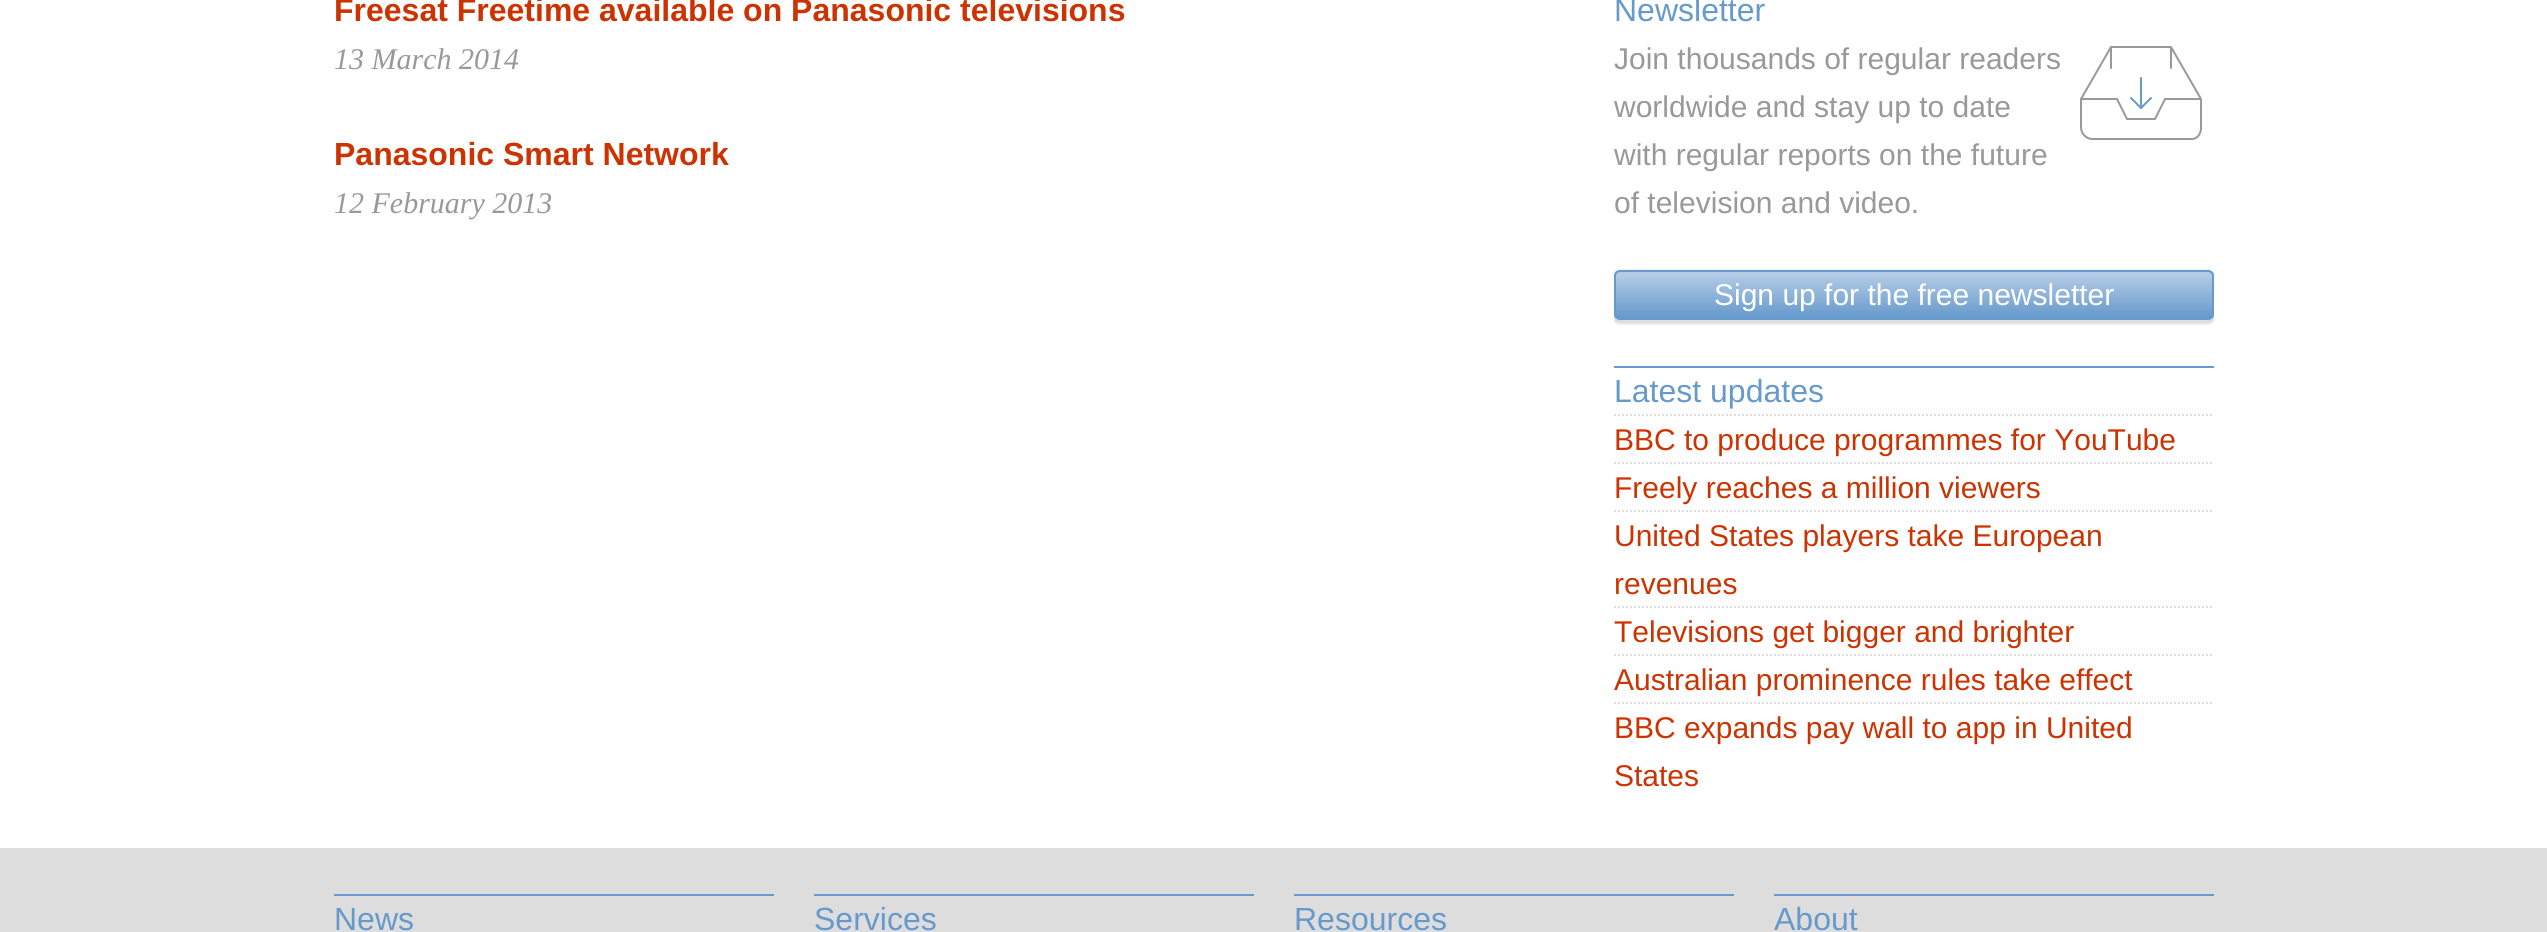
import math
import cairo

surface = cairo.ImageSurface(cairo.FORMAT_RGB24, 2547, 932)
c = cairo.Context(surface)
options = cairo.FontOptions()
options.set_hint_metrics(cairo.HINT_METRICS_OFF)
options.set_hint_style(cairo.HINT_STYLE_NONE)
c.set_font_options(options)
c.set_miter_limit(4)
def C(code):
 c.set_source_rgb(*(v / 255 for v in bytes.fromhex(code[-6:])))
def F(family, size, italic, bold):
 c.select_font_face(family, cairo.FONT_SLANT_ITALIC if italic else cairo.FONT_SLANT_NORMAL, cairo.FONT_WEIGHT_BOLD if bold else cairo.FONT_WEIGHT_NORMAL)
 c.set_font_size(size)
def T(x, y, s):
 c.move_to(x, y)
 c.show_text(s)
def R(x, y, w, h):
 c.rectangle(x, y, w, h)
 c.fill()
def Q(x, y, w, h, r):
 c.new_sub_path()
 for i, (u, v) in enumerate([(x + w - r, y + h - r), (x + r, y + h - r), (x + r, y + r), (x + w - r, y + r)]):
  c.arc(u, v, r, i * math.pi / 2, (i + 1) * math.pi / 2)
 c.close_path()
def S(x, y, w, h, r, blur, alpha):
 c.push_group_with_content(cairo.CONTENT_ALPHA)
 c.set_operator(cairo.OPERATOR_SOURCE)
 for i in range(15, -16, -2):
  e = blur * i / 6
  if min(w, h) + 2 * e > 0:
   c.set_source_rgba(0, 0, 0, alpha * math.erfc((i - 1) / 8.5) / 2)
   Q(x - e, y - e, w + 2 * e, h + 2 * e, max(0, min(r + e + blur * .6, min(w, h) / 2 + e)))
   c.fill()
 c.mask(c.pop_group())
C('ffffff')
c.paint()
F('Liberation Sans',32,0,1)
C('cc3300')
T(334,21,'Freesat Freetime available on Panasonic televisions')
F('Liberation Serif',30,1,0)
C('999999')
T(334,69,'13 March 2014')
F('Liberation Sans',32,0,1)
C('cc3300')
T(334,165,'Panasonic Smart Network')
F('Liberation Serif',30,1,0)
C('999999')
T(334,213,'12 February 2013')
F('Liberation Sans',32,0,0)
C('6699cc')
T(1614,21,'Newsletter')
F('Liberation Sans',30,0,0)
C('999999')
T(1614,69,'Join thousands of regular readers')
c.new_path()
c.move_to(2081,99)
c.line_to(2111,47)
c.line_to(2171,47)
c.line_to(2201,99)
c.set_line_join(cairo.LINE_JOIN_ROUND)
c.stroke()
c.new_path()
c.move_to(2165,99)
c.line_to(2201,99)
c.line_to(2201,128)
c.curve_to(2201,133.5,2197.5,139,2192,139)
c.line_to(2092,139)
c.curve_to(2086,138.5,2081.5,134,2081,128)
c.line_to(2081,99)
c.line_to(2117,99)
c.line_to(2127,119)
c.line_to(2155,119)
c.close_path()
c.stroke()
c.new_path()
c.move_to(2111,48)
c.line_to(2111,68)
c.move_to(2171,48)
c.line_to(2171,68)
c.set_line_cap(cairo.LINE_CAP_ROUND)
c.set_line_join(cairo.LINE_JOIN_MITER)
c.stroke()
c.new_path()
c.move_to(2141,78)
c.line_to(2141,108)
C('6699cc')
c.stroke()
c.new_path()
c.move_to(2131,98)
c.line_to(2141,108)
c.line_to(2151,98)
c.set_line_join(cairo.LINE_JOIN_ROUND)
c.stroke()
C('999999')
T(1614,117,'worldwide and stay up to date')
T(1614,165,'with regular reports on the future')
T(1614,213,'of television and video.')
c.save()
c.rectangle(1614,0,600,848)
c.clip()
C('dddddd')
S(1612,270,604,54,8,1,1)
c.restore()
c.save()
Q(1614,270,600,50,6)
c.clip()
gradient = cairo.LinearGradient(1616,272,1616,318)
gradient.add_color_stop_rgba(.05,0.702,0.796,0.902,1)
gradient.add_color_stop_rgba(1,0.4,0.6,0.8,1)
c.set_source(gradient)
R(1614,272,600,46)
c.restore()
Q(1615,271,598,48,5)
C('6699cc')
c.set_line_cap(cairo.LINE_CAP_BUTT)
c.set_line_join(cairo.LINE_JOIN_MITER)
c.stroke()
C('ffffff')
T(1714,305,'Sign up for the free newsletter')
C('6699cc')
R(1614,366,600,2)
F('Liberation Sans',32,0,0)
T(1614,402,'Latest updates')
c.new_path()
c.move_to(1614,415)
c.line_to(2214,415)
C('dddddd')
c.set_dash([2,2])
c.stroke()
F('Liberation Sans',30,0,0)
C('cc3300')
T(1614,450,'BBC to produce programmes for YouTube')
c.new_path()
c.move_to(1614,463)
c.line_to(2214,463)
C('dddddd')
c.stroke()
C('cc3300')
T(1614,498,'Freely reaches a million viewers')
c.new_path()
c.move_to(1614,511)
c.line_to(2214,511)
C('dddddd')
c.stroke()
C('cc3300')
T(1614,546,'United States players take European')
T(1614,594,'revenues')
c.new_path()
c.move_to(1614,607)
c.line_to(2214,607)
C('dddddd')
c.stroke()
C('cc3300')
T(1614,642,'Televisions get bigger and brighter')
c.new_path()
c.move_to(1614,655)
c.line_to(2214,655)
C('dddddd')
c.stroke()
C('cc3300')
T(1614,690,'Australian prominence rules take effect')
c.new_path()
c.move_to(1614,703)
c.line_to(2214,703)
C('dddddd')
c.stroke()
C('cc3300')
T(1614,738,'BBC expands pay wall to app in United')
T(1614,786,'States')
C('dddddd')
R(0,848,2547,84)
C('6699cc')
R(334,894,440,2)
F('Liberation Sans',32,0,0)
T(334,930,'News')
R(814,894,440,2)
T(814,930,'Services')
R(1294,894,440,2)
T(1294,930,'Resources')
R(1774,894,440,2)
T(1774,930,'About')
surface.write_to_png('o.png')
